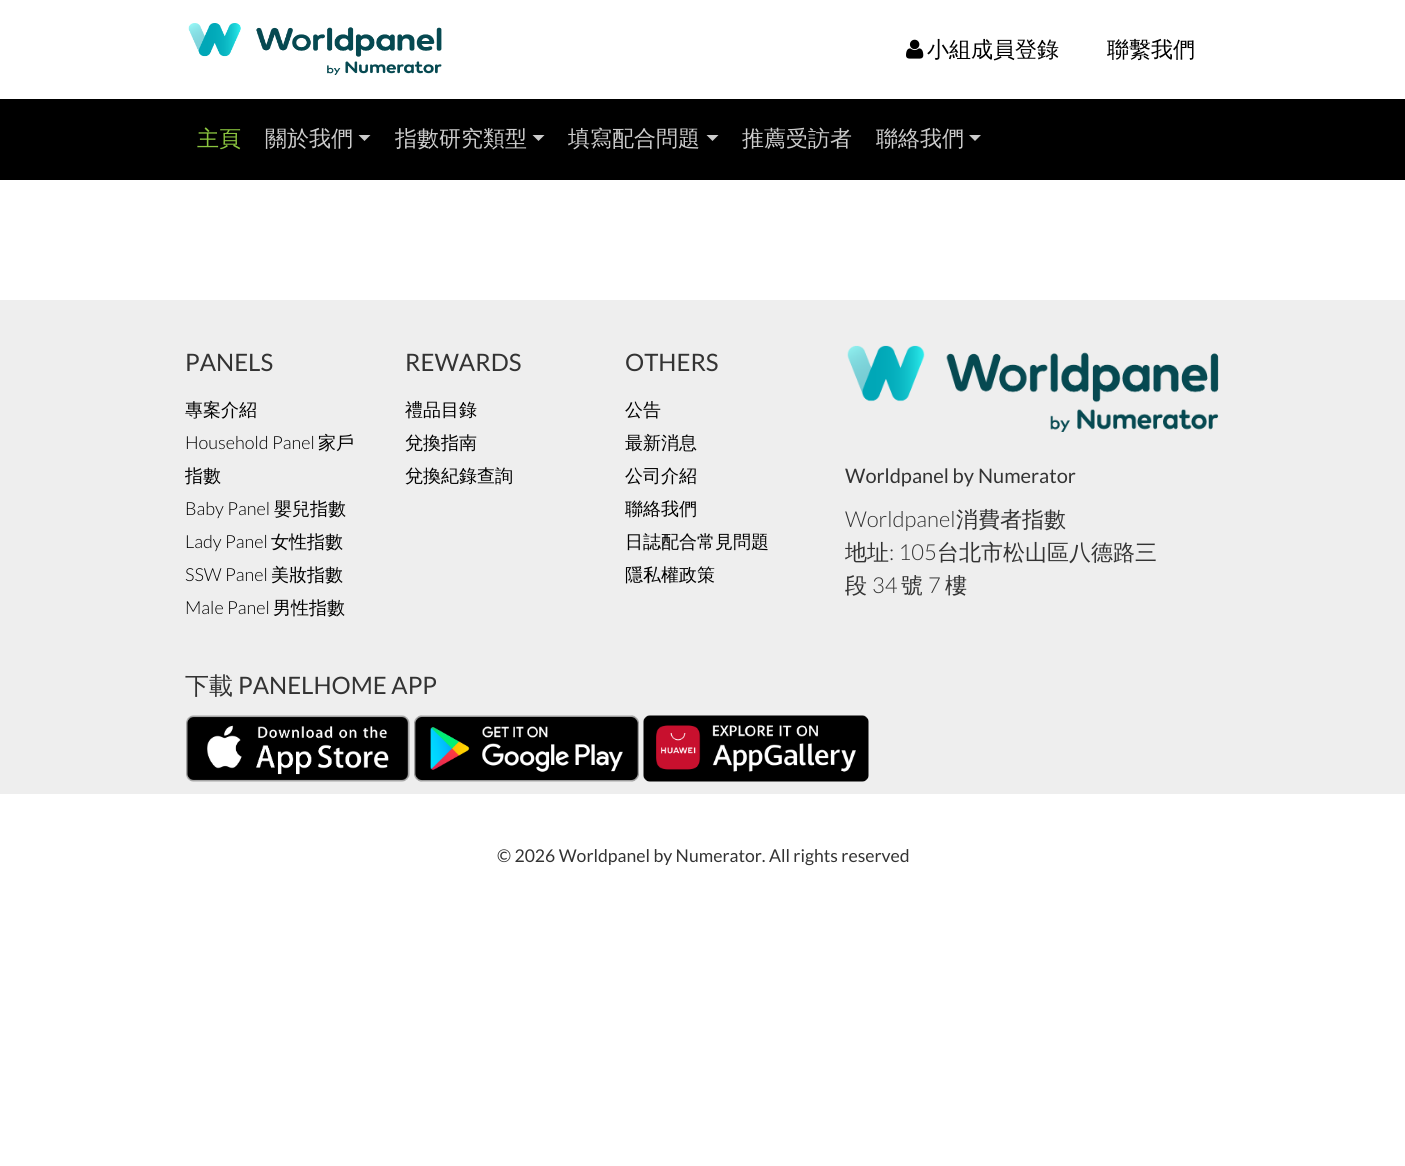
import math
import cairo

surface = cairo.ImageSurface(cairo.FORMAT_RGB24, 1405, 1166)
c = cairo.Context(surface)
options = cairo.FontOptions()
options.set_hint_metrics(cairo.HINT_METRICS_OFF)
options.set_hint_style(cairo.HINT_STYLE_NONE)
c.set_font_options(options)
c.set_miter_limit(4)
def C(code):
 c.set_source_rgb(*(v / 255 for v in bytes.fromhex(code[-6:])))
def F(family, size, italic, bold):
 c.select_font_face(family, cairo.FONT_SLANT_ITALIC if italic else cairo.FONT_SLANT_NORMAL, cairo.FONT_WEIGHT_BOLD if bold else cairo.FONT_WEIGHT_NORMAL)
 c.set_font_size(size)
def T(x, y, s):
 c.move_to(x, y)
 c.show_text(s)
def R(x, y, w, h):
 c.rectangle(x, y, w, h)
 c.fill()
def I(path, x, y, w, h):
 c.save()
 c.set_source_surface(cairo.ImageSurface.create_from_png(path), x, y)
 c.rectangle(x, y, w, h)
 c.fill()
 c.restore()
C('ffffff')
c.paint()
I('1.png',188,23,254,52)
I('2.png',906,39,18,20)
F('WenQuanYi Zen Hei Medium',22,0,0)
C('000000')
T(927,57,'小組成員登錄')
T(1107,57,'聯繫我們')
R(0,99,1405,81)
C('8bc53f')
T(197,146,'主頁')
C('cccccc')
T(265,146,'關於我們')
c.new_path()
c.move_to(358.5,135)
c.line_to(370.5,135)
c.line_to(364.5,141)
c.close_path()
c.fill()
T(395,146,'指數研究類型')
c.new_path()
c.move_to(532.5,135)
c.line_to(544.5,135)
c.line_to(538.5,141)
c.close_path()
c.fill()
T(568,146,'填寫配合問題')
c.new_path()
c.move_to(706.5,135)
c.line_to(718.5,135)
c.line_to(712.5,141)
c.close_path()
c.fill()
T(742,146,'推薦受訪者')
T(876,146,'聯絡我們')
c.new_path()
c.move_to(969,135)
c.line_to(981,135)
c.line_to(975,141)
c.close_path()
c.fill()
C('eeeeee')
R(0,300,1405,494)
F('Lato',24,0,0)
C('333333')
T(185,371,'PANELS')
F('WenQuanYi Zen Hei Medium',18,0,0)
C('000000')
T(185,416,'專案介紹')
F('Lato Light',18,0,0)
T(185,449,'Household Panel')
F('WenQuanYi Zen Hei Medium',18,0,0)
T(318,449,'家戶')
T(185,482,'指數')
F('Lato Light',18,0,0)
T(185,515,'Baby Panel')
F('WenQuanYi Zen Hei Medium',18,0,0)
T(274,515,'嬰兒指數')
F('Lato Light',18,0,0)
T(185,548,'Lady Panel')
F('WenQuanYi Zen Hei Medium',18,0,0)
T(271,548,'女性指數')
F('Lato Light',18,0,0)
T(185,581,'SSW Panel')
F('WenQuanYi Zen Hei Medium',18,0,0)
T(271,581,'美妝指數')
F('Lato Light',18,0,0)
T(185,614,'Male Panel')
F('WenQuanYi Zen Hei Medium',18,0,0)
T(273,614,'男性指數')
F('Lato',24,0,0)
C('333333')
T(405,371,'REWARDS')
F('WenQuanYi Zen Hei Medium',18,0,0)
C('000000')
T(405,416,'禮品目錄')
T(405,449,'兌換指南')
T(405,482,'兌換紀錄查詢')
F('Lato',24,0,0)
C('333333')
T(625,371,'OTHERS')
F('WenQuanYi Zen Hei Medium',18,0,0)
C('000000')
T(625,416,'公告')
T(625,449,'最新消息')
T(625,482,'公司介紹')
T(625,515,'聯絡我們')
T(625,548,'日誌配合常見問題')
T(625,581,'隱私權政策')
I('3.png',847,345,372,87)
F('Lato',20,0,0)
C('333333')
T(845,483,'Worldpanel by Numerator')
F('Lato Light',22,0,0)
T(845,527,'Worldpanel')
F('WenQuanYi Zen Hei Medium',22,0,0)
T(956,527,'消費者指數')
T(845,560,'地址')
F('Lato Light',22,0,0)
T(889,560,': 105')
F('WenQuanYi Zen Hei Medium',22,0,0)
T(937,560,'台北市松山區八德路三')
T(845,593,'段')
F('Lato Light',22,0,0)
T(872,593,'34')
F('WenQuanYi Zen Hei Medium',22,0,0)
T(901,593,'號')
F('Lato Light',22,0,0)
T(928,593,'7')
F('WenQuanYi Zen Hei Medium',22,0,0)
T(945,593,'樓')
F('WenQuanYi Zen Hei Medium',24,0,0)
T(185,694,'下載')
F('Lato',24,0,0)
T(238,694,'PANELHOME APP')
I('4.png',186,715,224,67)
I('5.png',414,715,225,67)
I('6.png',643,715,226,67)
F('Lato',17.6,0,0)
T(497,862,'© 2026 Worldpanel by Numerator. All rights reserved')
surface.write_to_png('o.png')
